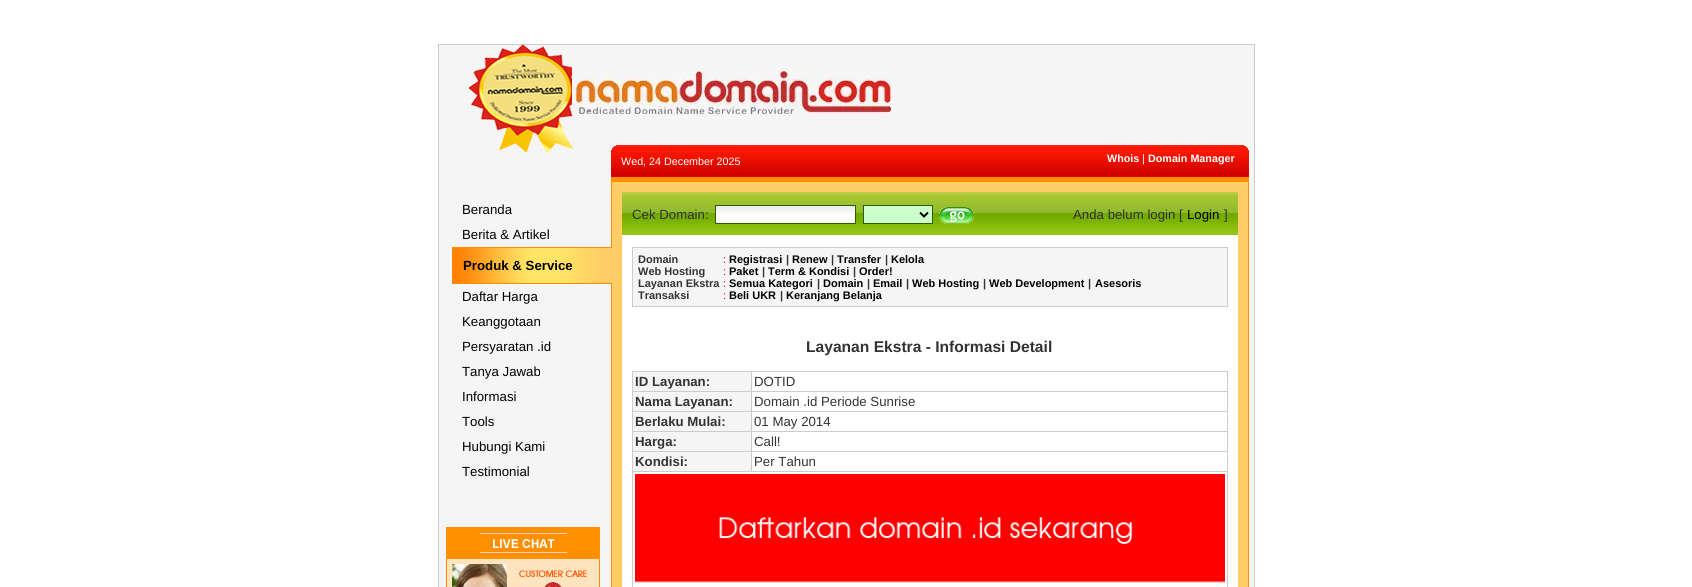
import math
import cairo

surface = cairo.ImageSurface(cairo.FORMAT_RGB24, 1692, 587)
c = cairo.Context(surface)
options = cairo.FontOptions()
options.set_hint_metrics(cairo.HINT_METRICS_OFF)
options.set_hint_style(cairo.HINT_STYLE_NONE)
c.set_font_options(options)
c.set_miter_limit(4)
def C(code):
 c.set_source_rgb(*(v / 255 for v in bytes.fromhex(code[-6:])))
def F(family, size, italic, bold):
 c.select_font_face(family, cairo.FONT_SLANT_ITALIC if italic else cairo.FONT_SLANT_NORMAL, cairo.FONT_WEIGHT_BOLD if bold else cairo.FONT_WEIGHT_NORMAL)
 c.set_font_size(size)
def T(x, y, s):
 c.move_to(x, y)
 c.show_text(s)
def R(x, y, w, h):
 c.rectangle(x, y, w, h)
 c.fill()
def I(path, x, y, w, h):
 c.save()
 c.set_source_surface(cairo.ImageSurface.create_from_png(path), x, y)
 c.rectangle(x, y, w, h)
 c.fill()
 c.restore()
C('ffffff')
c.paint()
C('f5f5f5')
c.rectangle(438.5,44.5,816,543)
c.fill_preserve()
C('cccccc')
c.set_line_width(1)
c.stroke()
I('1.png',469,45,105,109)
I('2.png',572,67,321,51)
I('3.png',611,145,638,32)
F('Liberation Sans',10.75,0,0)
C('ffffff')
T(621,165,'Wed, 24 December 2025')
F('Liberation Sans',10.75,0,1)
T(1107,162,'Whois')
F('Liberation Sans',10.75,0,0)
T(1142,162,'|')
F('Liberation Sans',10.75,0,1)
T(1148,162,'Domain Manager')
F('Liberation Sans',13.25,0,0)
C('000000')
T(462,214,'Beranda')
T(462,239,'Berita & Artikel')
C('fe8f00')
R(611,177,638,5)
R(611,177,1,410)
C('ffcc66')
R(453,248,159,35)
I('4.png',453,248,145,35)
C('fe8f00')
R(452,247,160,1)
R(452,283,160,1)
R(452,247,1,37)
F('Liberation Sans',13.25,0,1)
C('000000')
T(463,270,'Produk & Service')
F('Liberation Sans',13.25,0,0)
T(462,301,'Daftar Harga')
T(462,326,'Keanggotaan')
T(462,351,'Persyaratan .id')
T(462,376,'Tanya Jawab')
T(462,401,'Informasi')
T(462,426,'Tools')
T(462,451,'Hubungi Kami')
T(462,476,'Testimonial')
C('fe8f00')
R(446,527,154,60)
I('5.png',480,533,87,20)
C('ffe4bf')
R(447,559,152,28)
I('6.png',452,564,55,23)
I('7.png',519,570,68,7)
I('8.png',544,582,18,5)
C('ffcc66')
R(612,182,636,405)
C('fe8f00')
R(1248,177,1,410)
C('ffffff')
R(622,235,616,352)
I('9.png',622,192,616,43)
C('333333')
T(632,219,'Cek Domain:')
I('10.png',716,206,139,17)
c.rectangle(715.5,205.5,140,18)
C('2e5b00')
c.stroke()
C('ccffcc')
c.rectangle(863.5,205.5,69,18)
c.fill_preserve()
C('2e5b00')
c.stroke()
c.new_path()
c.move_to(920,212.5)
c.line_to(924,216.5)
c.line_to(928,212.5)
C('000000')
c.set_line_width(2)
c.stroke()
I('11.png',939,207,35,17)
C('333333')
T(1073,219,'Anda belum login [')
C('000000')
T(1187,219,'Login')
C('333333')
T(1224,219,']')
C('f5f5f5')
R(633,248,594,58)
C('cccccc')
R(632,247,596,1)
R(1227,247,1,60)
R(632,306,596,1)
R(632,247,1,60)
F('Liberation Sans',11,0,1)
C('333333')
T(638,263,'Domain')
F('Liberation Sans',11,0,0)
C('ff0000')
T(723,263,':')
F('Liberation Sans',11,0,1)
C('000000')
T(729,263,'Registrasi')
C('333333')
T(786,263,'|')
C('000000')
T(792,263,'Renew')
C('333333')
T(831,263,'|')
C('000000')
T(837,263,'Transfer')
C('333333')
T(885,263,'|')
C('000000')
T(891,263,'Kelola')
C('333333')
T(638,275,'Web Hosting')
F('Liberation Sans',11,0,0)
C('ff0000')
T(723,275,':')
F('Liberation Sans',11,0,1)
C('000000')
T(729,275,'Paket')
C('333333')
T(762,275,'|')
C('000000')
T(768,275,'Term & Kondisi')
C('333333')
T(853,275,'|')
C('000000')
T(859,275,'Order!')
C('333333')
T(638,287,'Layanan Ekstra')
F('Liberation Sans',11,0,0)
C('ff0000')
T(723,287,':')
F('Liberation Sans',11,0,1)
C('000000')
T(729,287,'Semua Kategori')
C('333333')
T(817,287,'|')
C('000000')
T(823,287,'Domain')
C('333333')
T(867,287,'|')
C('000000')
T(873,287,'Email')
C('333333')
T(906,287,'|')
C('000000')
T(912,287,'Web Hosting')
C('333333')
T(983,287,'|')
C('000000')
T(989,287,'Web Development')
C('333333')
T(1088,287,'|')
C('000000')
T(1095,287,'Asesoris')
C('333333')
T(638,299,'Transaksi')
F('Liberation Sans',11,0,0)
C('ff0000')
T(723,299,':')
F('Liberation Sans',11,0,1)
C('000000')
T(729,299,'Beli UKR')
C('333333')
T(780,299,'|')
C('000000')
T(786,299,'Keranjang Belanja')
F('Liberation Sans',15.6,0,1)
C('333333')
T(806,352,'Layanan Ekstra - Informasi Detail')
C('cccccc')
R(632,371,596,1)
R(1227,371,1,216)
R(632,371,1,216)
C('f5f5f5')
R(633,372,118,19)
F('Liberation Sans',13.25,0,1)
C('333333')
T(635,386,'ID Layanan:')
C('cccccc')
R(751,391,477,1)
R(751,411,477,1)
R(751,431,477,1)
R(751,451,477,1)
R(632,471,596,1)
R(751,451,1,21)
R(632,451,120,1)
R(751,431,1,21)
R(632,431,120,1)
R(751,411,1,21)
R(632,411,120,1)
R(751,391,1,21)
R(632,391,120,1)
R(751,371,1,21)
F('Liberation Sans',13.25,0,0)
C('333333')
T(754,386,'DOTID')
C('f5f5f5')
R(633,392,118,19)
F('Liberation Sans',13.25,0,1)
C('333333')
T(635,406,'Nama Layanan:')
F('Liberation Sans',13.25,0,0)
T(754,406,'Domain .id Periode Sunrise')
C('f5f5f5')
R(633,412,118,19)
F('Liberation Sans',13.25,0,1)
C('333333')
T(635,426,'Berlaku Mulai:')
F('Liberation Sans',13.25,0,0)
T(754,426,'01 May 2014')
C('f5f5f5')
R(633,432,118,19)
F('Liberation Sans',13.25,0,1)
C('333333')
T(635,446,'Harga:')
F('Liberation Sans',13.25,0,0)
T(754,446,'Call!')
C('f5f5f5')
R(633,452,118,19)
F('Liberation Sans',13.25,0,1)
C('333333')
T(635,466,'Kondisi:')
F('Liberation Sans',13.25,0,0)
T(754,466,'Per Tahun')
I('12.png',635,474,590,109)
surface.write_to_png('o.png')
